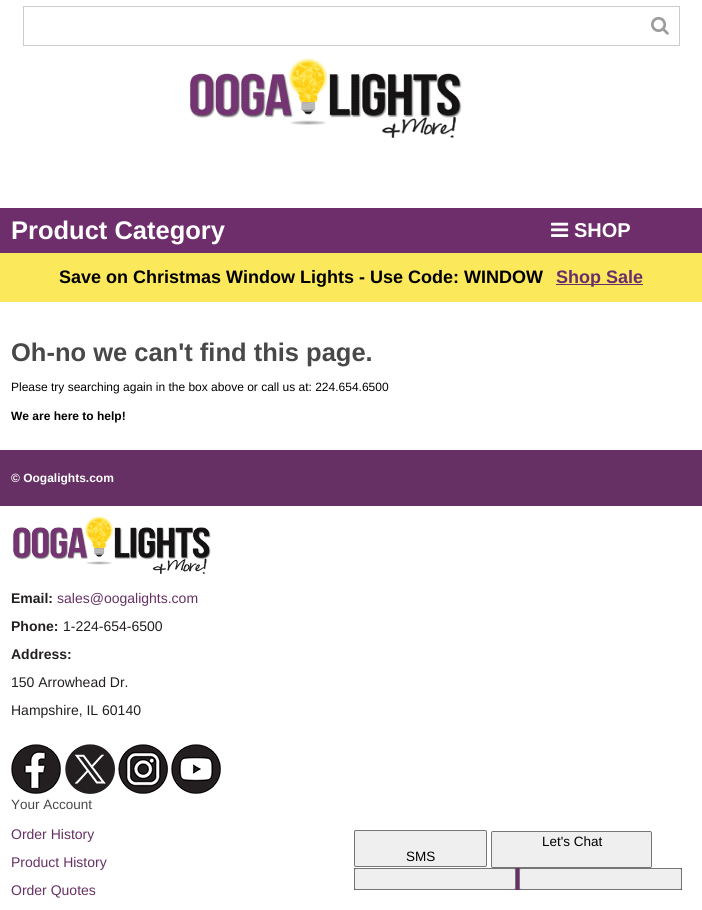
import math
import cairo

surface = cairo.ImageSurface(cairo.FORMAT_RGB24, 702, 910)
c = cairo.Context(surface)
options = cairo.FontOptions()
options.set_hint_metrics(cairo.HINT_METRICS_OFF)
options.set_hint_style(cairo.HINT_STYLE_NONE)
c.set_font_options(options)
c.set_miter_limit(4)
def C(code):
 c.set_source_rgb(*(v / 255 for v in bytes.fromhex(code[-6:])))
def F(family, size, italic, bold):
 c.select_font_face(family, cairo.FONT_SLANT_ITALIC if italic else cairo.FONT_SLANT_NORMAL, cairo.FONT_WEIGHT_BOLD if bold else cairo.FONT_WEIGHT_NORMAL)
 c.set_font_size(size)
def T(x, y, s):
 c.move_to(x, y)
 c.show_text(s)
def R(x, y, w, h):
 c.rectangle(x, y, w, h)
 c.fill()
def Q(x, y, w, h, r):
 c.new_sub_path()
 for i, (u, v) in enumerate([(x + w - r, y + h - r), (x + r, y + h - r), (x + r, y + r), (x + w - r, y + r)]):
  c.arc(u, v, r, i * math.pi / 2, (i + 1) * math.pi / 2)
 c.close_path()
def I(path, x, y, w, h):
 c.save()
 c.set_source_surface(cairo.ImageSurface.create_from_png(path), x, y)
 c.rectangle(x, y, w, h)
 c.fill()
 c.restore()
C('ffffff')
c.paint()
c.rectangle(23.5,6.5,656,39)
C('cccccc')
c.set_line_width(1)
c.stroke()
I('1.png',651,16,18,19)
I('2.png',190,58,272,80)
C('6e2d6b')
R(0,208,702,45)
F('Liberation Sans',25.5,0,1)
C('ffffff')
T(11,239,'Product Category')
I('3.png',551,222,18,15)
F('Liberation Sans',20,0,1)
T(574,237,'SHOP')
C('fce85b')
R(0,253,702,49)
F('Liberation Sans',18,0,1)
C('000000')
T(59,283,'Save on Christmas Window Lights - Use Code: WINDOW')
C('6a2d6c')
R(556,284,87,1)
T(556,283,'Shop Sale')
F('Liberation Sans',25.5,0,1)
C('494849')
T(11,361,'Oh-no we can\'t find this page.')
F('Liberation Sans',12,0,0)
C('000000')
T(11,391,'Please try searching again in the box above or call us at: 224.654.6500')
F('Liberation Sans',12,0,1)
T(11,420,'We are here to help!')
C('663064')
R(0,450,702,56)
C('ffffff')
T(11,482,'© Oogalights.com')
I('4.png',13,516,198,58)
F('Liberation Sans',14,0,1)
C('231f20')
T(11,603,'Email:')
F('Liberation Sans',14,0,0)
C('663064')
T(57,603,'sales@oogalights.com')
F('Liberation Sans',14,0,1)
C('231f20')
T(11,631,'Phone:')
F('Liberation Sans',14,0,0)
T(63,631,'1-224-654-6500')
F('Liberation Sans',14,0,1)
T(11,659,'Address:')
F('Liberation Sans',14,0,0)
T(11,687,'150 Arrowhead Dr.')
T(11,715,'Hampshire, IL 60140')
I('5.png',11,744,50,50)
I('6.png',65,744,50,50)
I('7.png',118,744,50,50)
I('8.png',171,744,50,50)
F('Liberation Sans',13.5,0,0)
C('494849')
T(11,809,'Your Account')
F('Liberation Sans',14,0,0)
C('663064')
T(11,839,'Order History')
T(11,867,'Product History')
T(11,895,'Order Quotes')
C('efefef')
Q(491.5,831.5,160,36,1.5)
c.fill_preserve()
C('767676')
c.stroke()
F('Liberation Sans',13.5,0,0)
C('000000')
T(542,846,'Let\'s Chat')
C('efefef')
Q(354.5,830.5,132,36,1.5)
c.fill_preserve()
C('767676')
c.stroke()
C('000000')
T(406,861,'SMS')
C('6e2d6b')
R(354,868,328,22)
C('efefef')
Q(354.5,868.5,161,21,1.5)
c.fill_preserve()
C('767676')
c.stroke()
C('efefef')
Q(519.5,868.5,162,21,1.5)
c.fill_preserve()
C('767676')
c.stroke()
surface.write_to_png('o.png')
